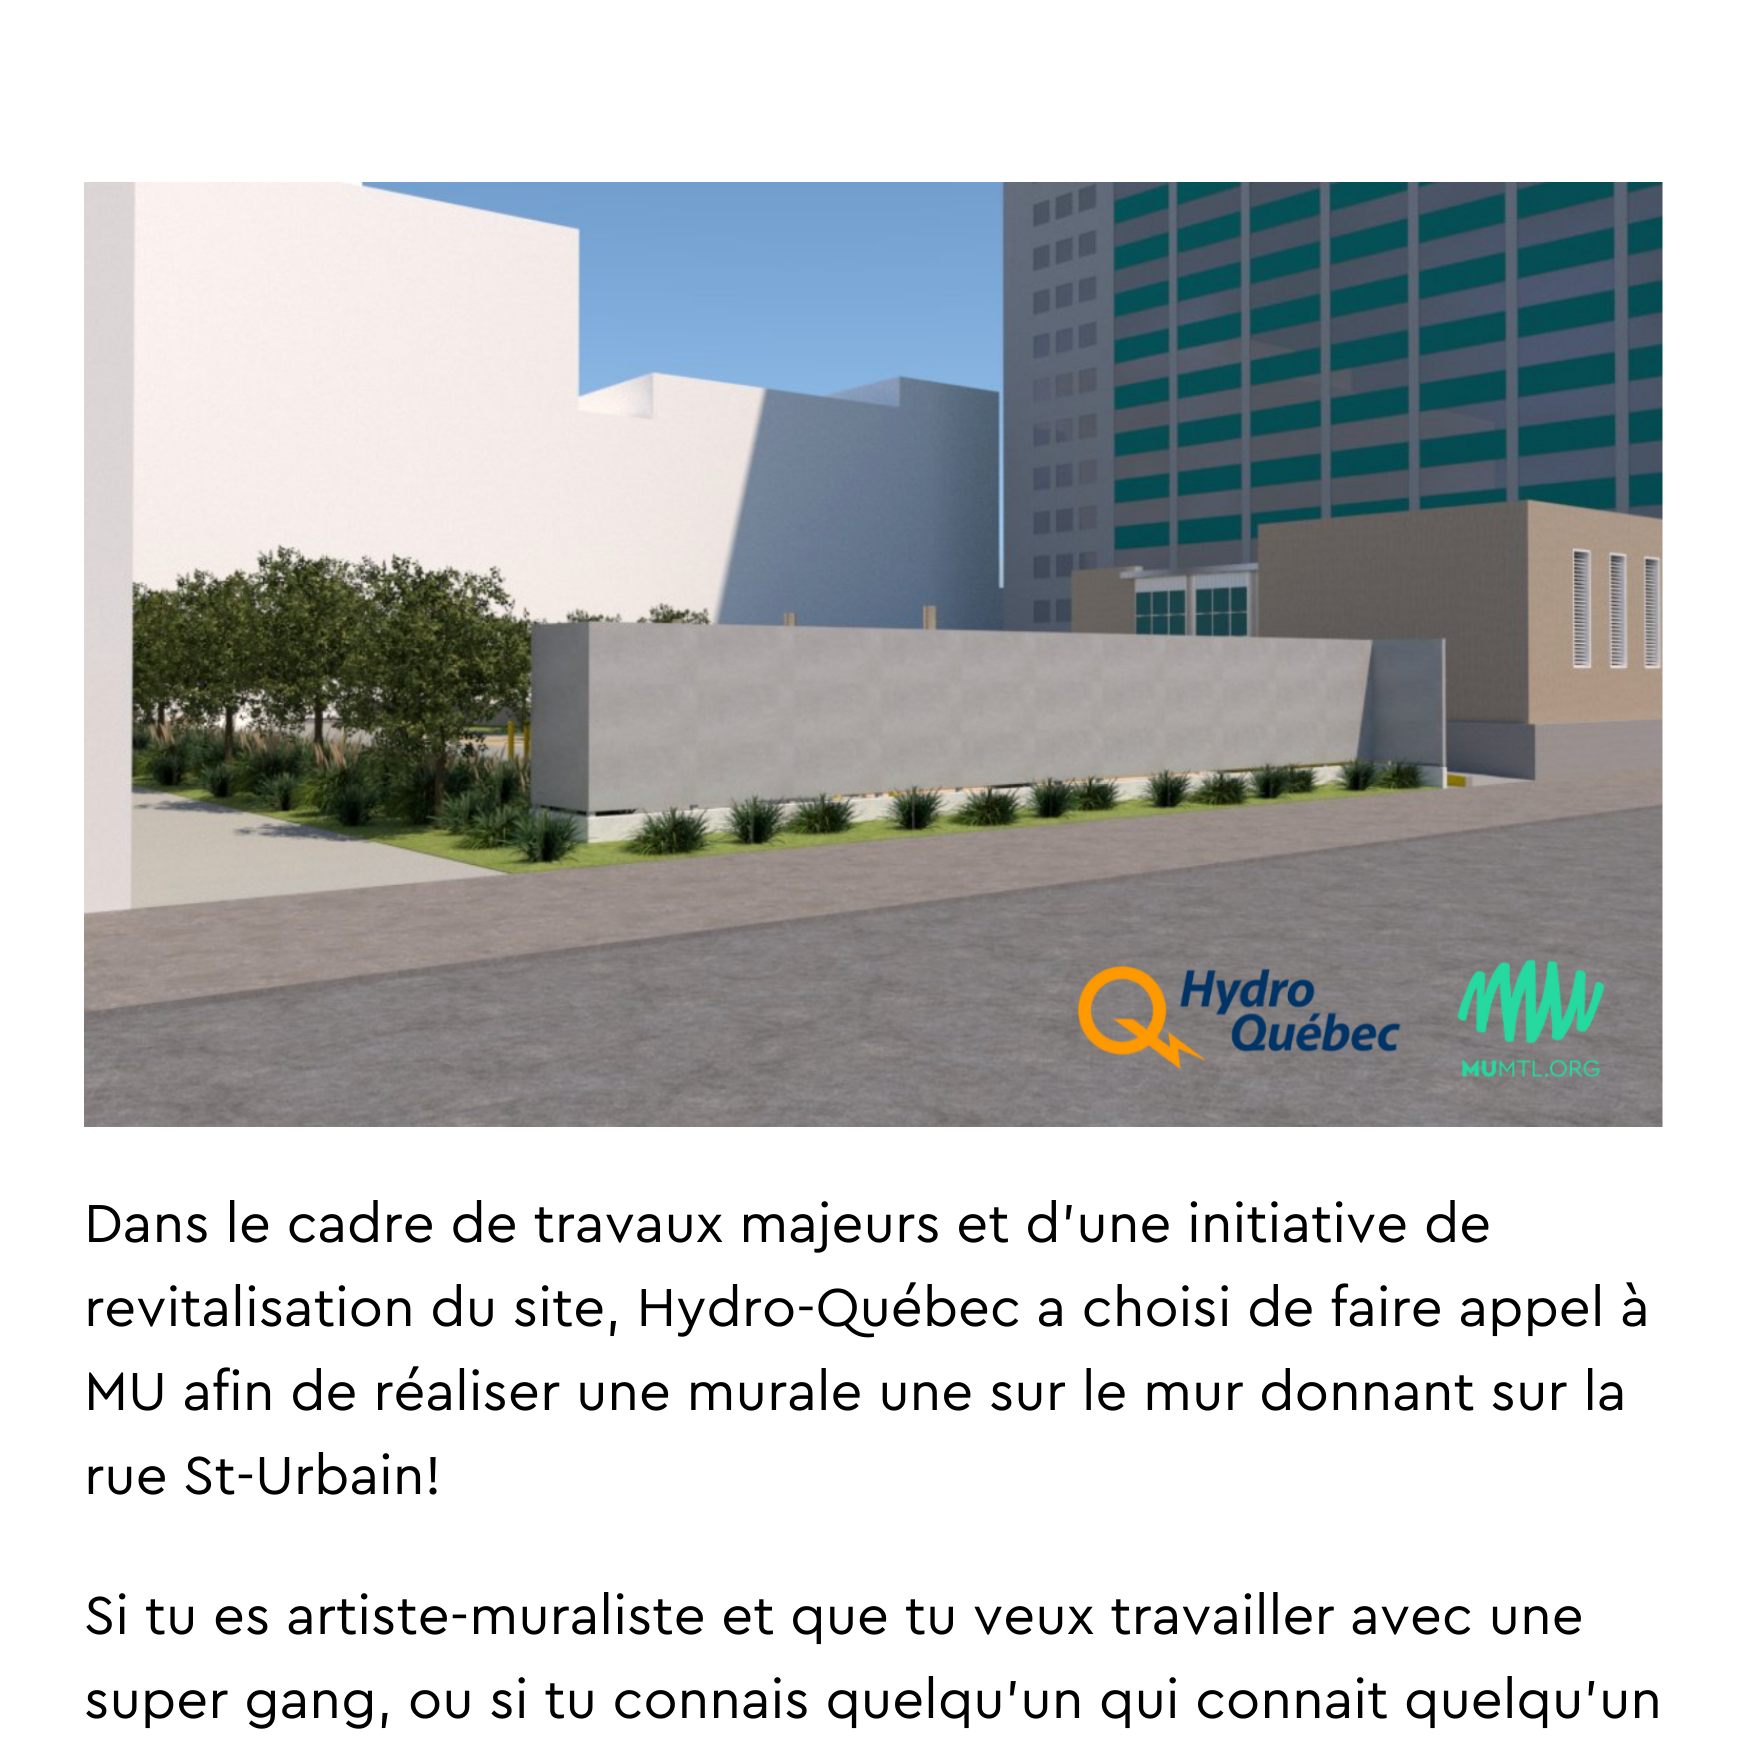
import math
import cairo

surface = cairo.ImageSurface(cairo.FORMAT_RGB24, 1744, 1755)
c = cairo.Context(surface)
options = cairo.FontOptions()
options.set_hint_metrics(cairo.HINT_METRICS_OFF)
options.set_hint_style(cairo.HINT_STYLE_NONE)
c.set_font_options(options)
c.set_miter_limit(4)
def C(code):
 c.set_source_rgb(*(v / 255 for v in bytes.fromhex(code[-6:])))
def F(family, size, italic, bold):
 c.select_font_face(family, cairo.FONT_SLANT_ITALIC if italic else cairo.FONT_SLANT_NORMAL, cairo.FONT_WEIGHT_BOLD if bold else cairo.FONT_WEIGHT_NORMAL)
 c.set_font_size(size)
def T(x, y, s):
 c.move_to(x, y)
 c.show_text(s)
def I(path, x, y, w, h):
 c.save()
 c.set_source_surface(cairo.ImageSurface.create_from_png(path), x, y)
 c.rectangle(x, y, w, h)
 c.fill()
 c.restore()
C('ffffff')
c.paint()
I('1.png',84,182,1579,945)
F('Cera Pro',56,0,0)
C('000000')
T(84,1242,'Dans le cadre de travaux majeurs et d’une initiative de')
T(84,1326,'revitalisation du site, Hydro-Québec a choisi de faire appel à')
T(84,1410,'MU afin de réaliser une murale une sur le mur donnant sur la')
T(84,1494,'rue St-Urbain!')
T(84,1634,'Si tu es artiste-muraliste et que tu veux travailler avec une')
T(84,1718,'super gang, ou si tu connais quelqu’un qui connait quelqu’un')
surface.write_to_png('o.png')
